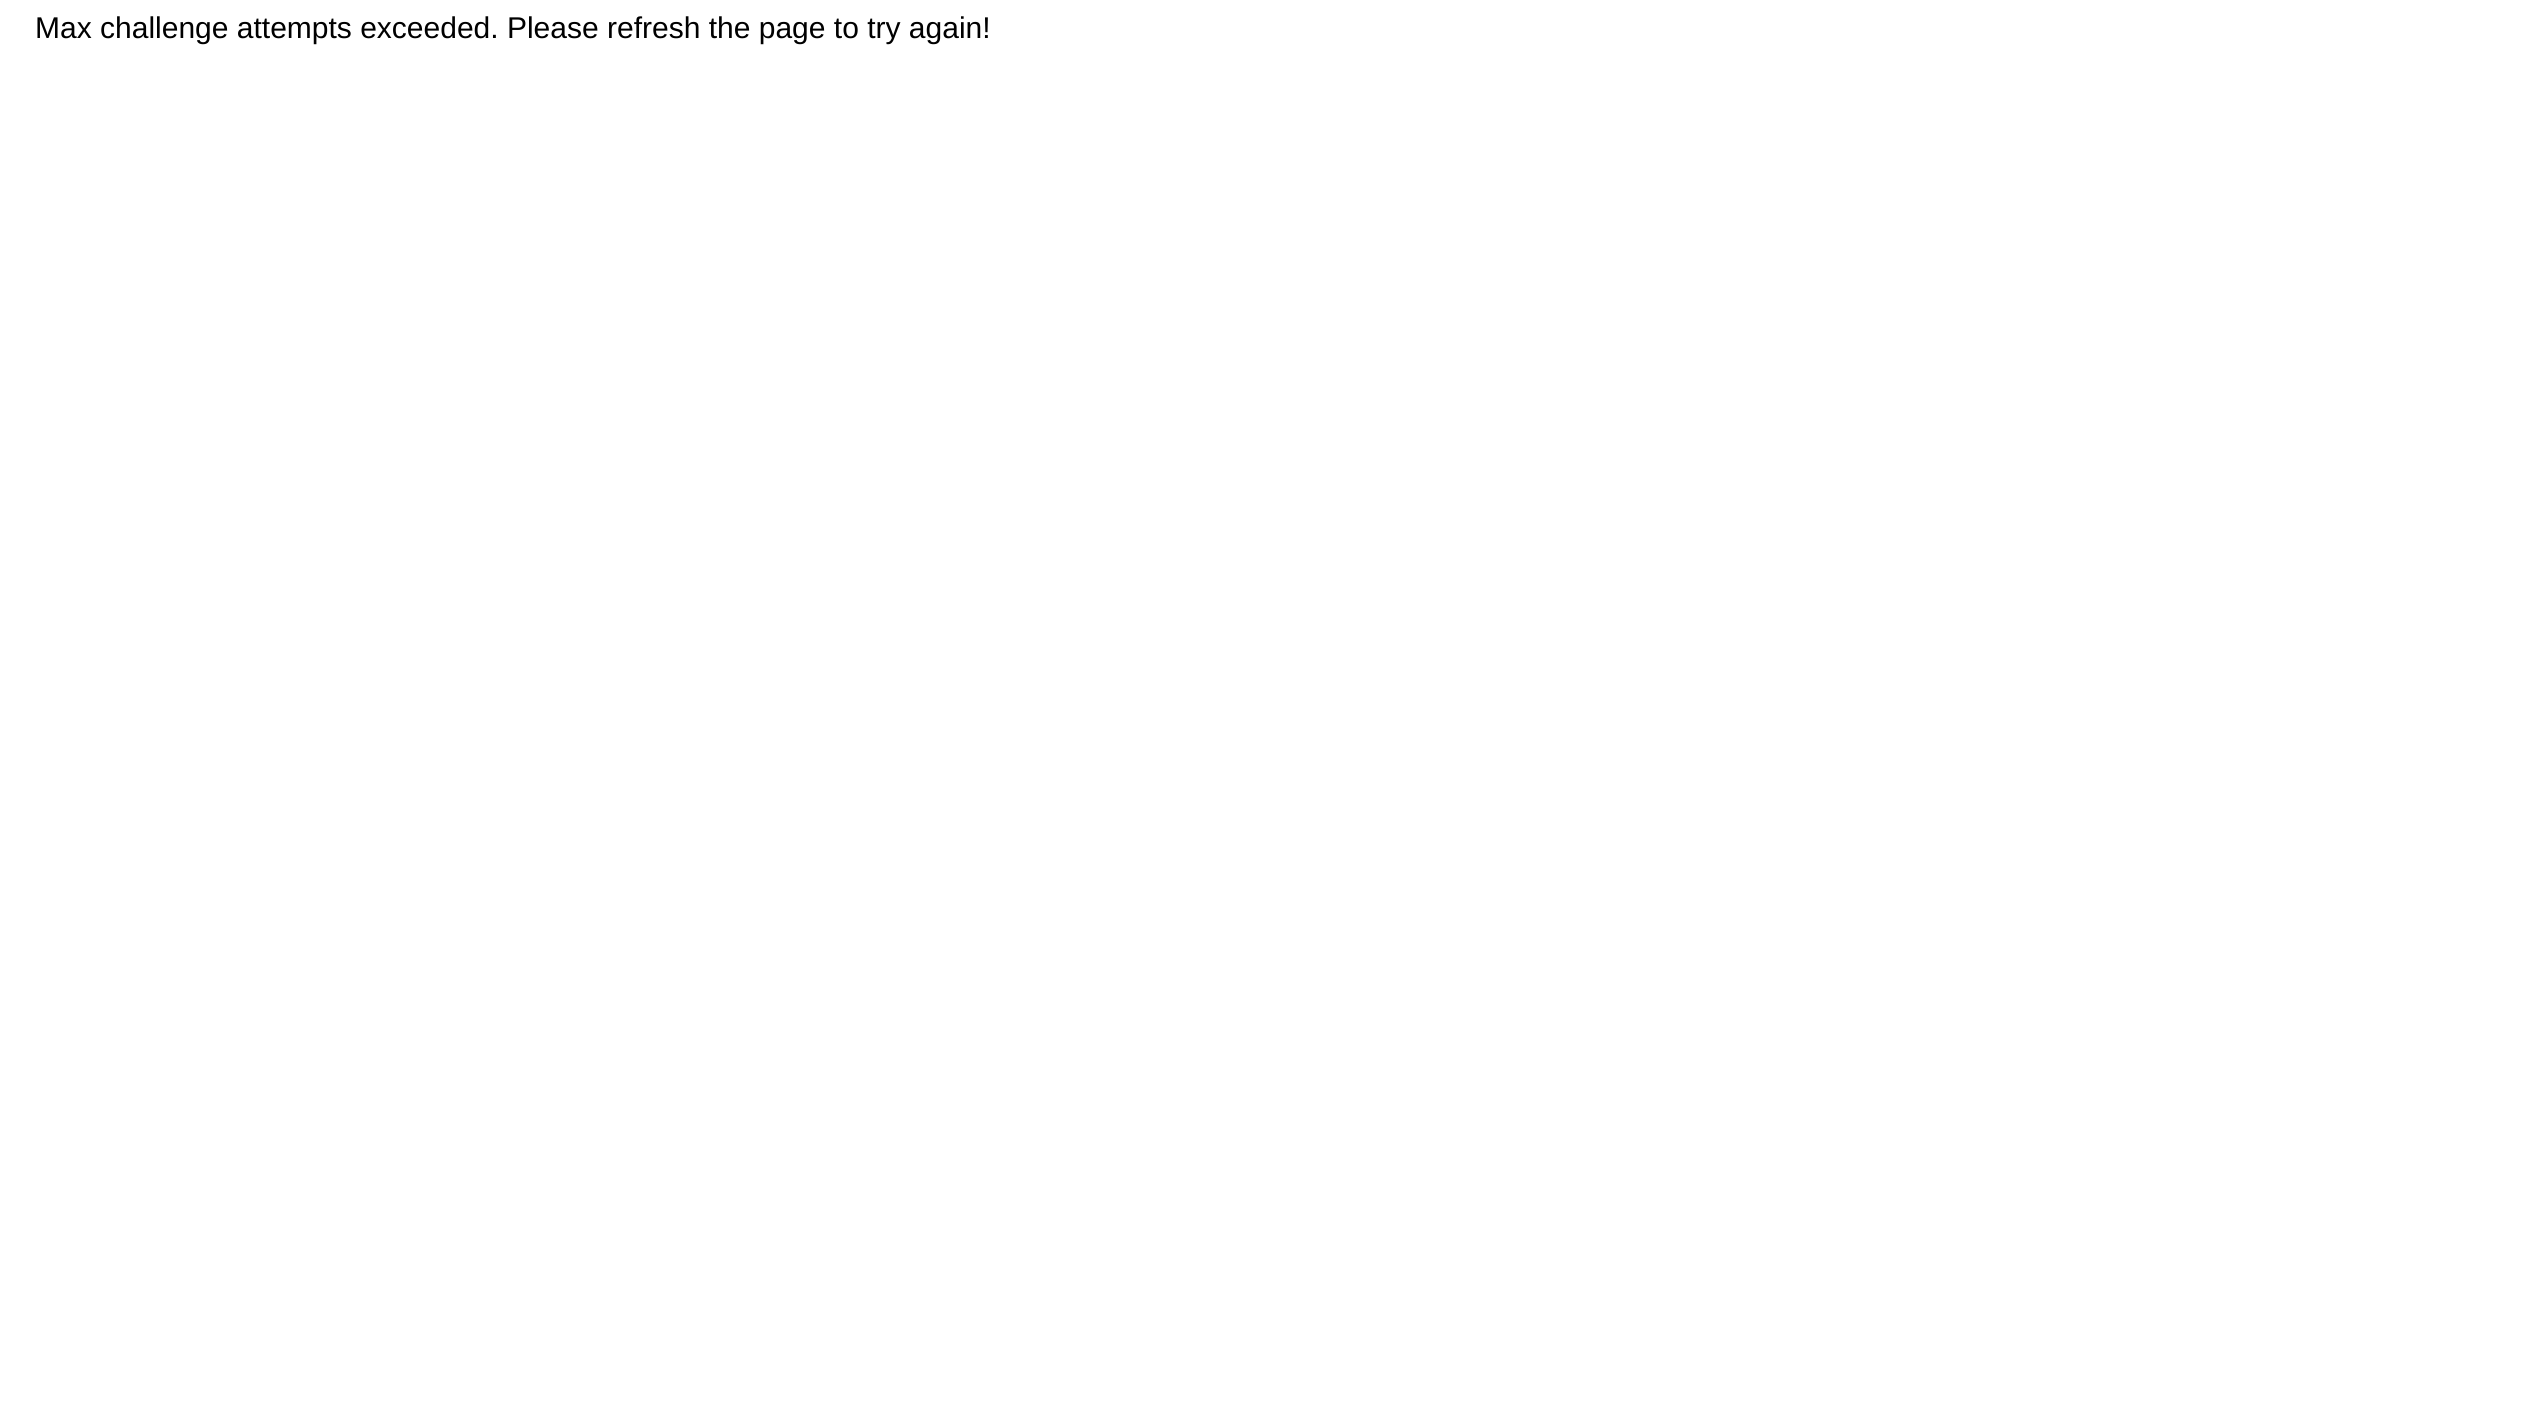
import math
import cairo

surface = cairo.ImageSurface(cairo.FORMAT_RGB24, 2541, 1428)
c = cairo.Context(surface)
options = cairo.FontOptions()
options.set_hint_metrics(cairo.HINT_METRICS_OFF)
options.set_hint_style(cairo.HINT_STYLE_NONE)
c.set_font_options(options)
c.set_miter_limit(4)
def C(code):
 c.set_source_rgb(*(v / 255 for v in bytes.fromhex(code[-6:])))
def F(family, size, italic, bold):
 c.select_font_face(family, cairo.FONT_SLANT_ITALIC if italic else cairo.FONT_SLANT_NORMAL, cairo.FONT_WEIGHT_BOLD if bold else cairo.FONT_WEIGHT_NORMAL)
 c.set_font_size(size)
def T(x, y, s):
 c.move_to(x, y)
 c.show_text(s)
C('ffffff')
c.paint()
F('Liberation Sans',30,0,0)
C('000000')
T(35,38,'Max challenge attempts exceeded. Please refresh the page to try again!')
surface.write_to_png('o.png')
